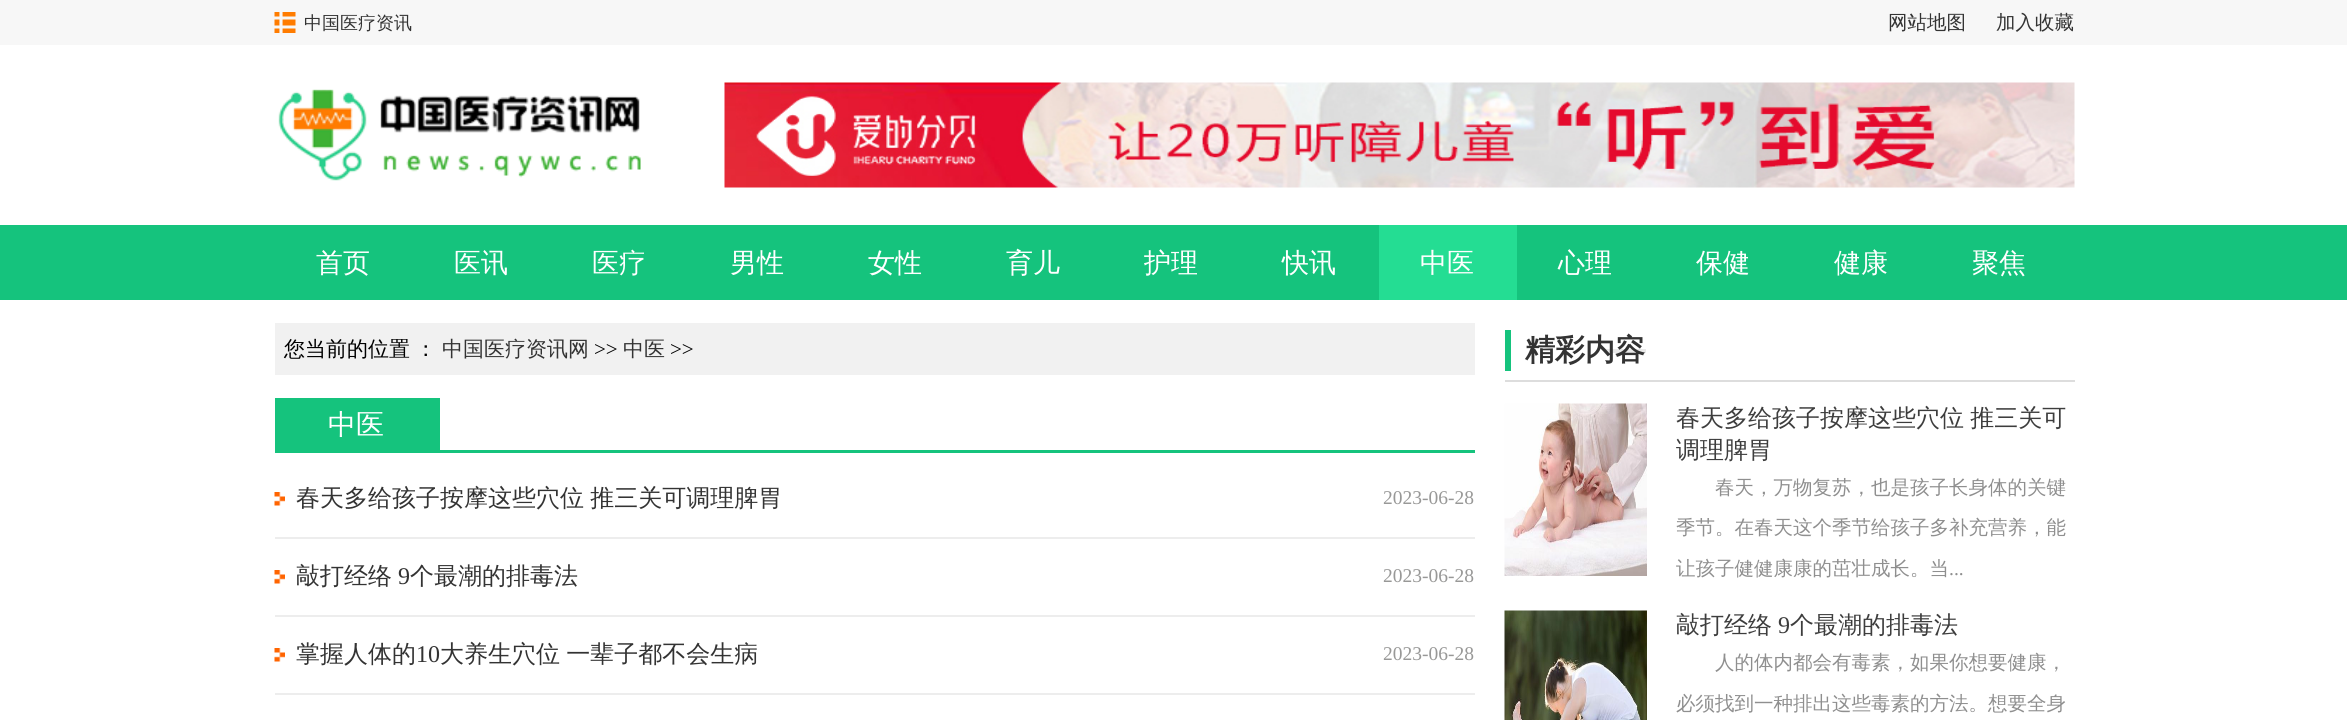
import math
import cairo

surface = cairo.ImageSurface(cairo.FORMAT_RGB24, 2347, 720)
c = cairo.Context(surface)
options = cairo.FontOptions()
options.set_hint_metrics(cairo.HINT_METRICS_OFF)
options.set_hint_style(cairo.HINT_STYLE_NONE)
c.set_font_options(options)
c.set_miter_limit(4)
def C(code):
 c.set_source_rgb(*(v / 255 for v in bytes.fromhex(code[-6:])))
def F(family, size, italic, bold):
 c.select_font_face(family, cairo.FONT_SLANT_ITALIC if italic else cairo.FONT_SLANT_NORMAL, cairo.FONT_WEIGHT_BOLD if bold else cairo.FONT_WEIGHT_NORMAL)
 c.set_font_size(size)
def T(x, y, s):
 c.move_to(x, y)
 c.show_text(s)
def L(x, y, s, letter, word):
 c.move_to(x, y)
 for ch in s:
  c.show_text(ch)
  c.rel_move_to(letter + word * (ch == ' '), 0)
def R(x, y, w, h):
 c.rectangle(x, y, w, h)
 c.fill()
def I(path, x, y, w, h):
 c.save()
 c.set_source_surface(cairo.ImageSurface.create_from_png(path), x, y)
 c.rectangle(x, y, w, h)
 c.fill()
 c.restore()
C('ffffff')
c.paint()
C('f7f7f7')
R(0,0,2347,45)
I('1.png',274,12,22,21)
F('WenQuanYi Zen Hei Medium',18,0,0)
C('333333')
T(304,29,'中国医疗资讯')
F('WenQuanYi Zen Hei Medium',19.5,0,0)
T(1888,29,'网站地图')
T(1996,29,'加入收藏')
I('2.png',278,89,363,92)
I('3.png',724,82,1351,106)
C('15c37d')
R(0,225,2347,75)
F('WenQuanYi Zen Hei Medium',27,0,0)
C('ffffff')
T(316,272,'首页')
T(454,272,'医讯')
T(592,272,'医疗')
T(730,272,'男性')
T(868,272,'女性')
T(1006,272,'育儿')
T(1144,272,'护理')
T(1282,272,'快讯')
C('24dd93')
R(1379,225,138,75)
C('ffffff')
T(1420,272,'中医')
T(1558,272,'心理')
T(1696,272,'保健')
T(1834,272,'健康')
T(1972,272,'聚焦')
C('f1f1f1')
R(275,323,1200,52)
F('WenQuanYi Zen Hei Medium',21,0,0)
C('000000')
L(284,356,'您当前的位置 ：',0,-1)
C('333333')
T(442,356,'中国医疗资讯网')
F('Liberation Serif',21,0,0)
C('000000')
T(594,356,'>>')
F('WenQuanYi Zen Hei Medium',21,0,0)
C('333333')
T(623,356,'中医')
F('Liberation Serif',21,0,0)
C('000000')
T(670,356,'>>')
C('15c37d')
R(275,450,1200,3)
R(275,398,165,52)
F('WenQuanYi Zen Hei Medium',28,0,0)
C('ffffff')
T(328,434,'中医')
I('4.png',274,492,11,14)
C('ededed')
R(275,537,1200,2)
F('WenQuanYi Zen Hei Medium',24,0,0)
C('333333')
L(296,506,'春天多给孩子按摩这些穴位 推三关可调理脾胃',0,-1)
F('Liberation Serif',19.5,0,0)
C('989897')
T(1383,504,'2023-06-28')
I('4.png',274,570,11,14)
C('ededed')
R(275,615,1200,2)
F('WenQuanYi Zen Hei Medium',24,0,0)
C('333333')
T(296,584,'敲打经络')
F('Liberation Serif',24,0,0)
T(398,584,'9')
F('WenQuanYi Zen Hei Medium',24,0,0)
T(410,584,'个最潮的排毒法')
F('Liberation Serif',19.5,0,0)
C('989897')
T(1383,582,'2023-06-28')
I('4.png',274,648,11,14)
C('ededed')
R(275,693,1200,2)
F('WenQuanYi Zen Hei Medium',24,0,0)
C('333333')
T(296,662,'掌握人体的')
F('Liberation Serif',24,0,0)
T(416,662,'10')
F('WenQuanYi Zen Hei Medium',24,0,0)
L(440,662,'大养生穴位 一辈子都不会生病',0,-1)
F('Liberation Serif',19.5,0,0)
C('989897')
T(1383,660,'2023-06-28')
C('dddddd')
R(1505,380,570,2)
C('e9e9e9')
R(1605,349,41,4)
C('15c37d')
R(1505,330,6,41)
F('WenQuanYi Zen Hei',30,0,1)
C('333333')
T(1525,360,'精彩内容')
I('5.png',1504,403,143,173)
F('WenQuanYi Zen Hei Medium',24,0,0)
C('3d3d3d')
L(1676,426,'春天多给孩子按摩这些穴位 推三关可',0,-1)
T(1676,458,'调理脾胃')
F('WenQuanYi Zen Hei Medium',19.5,0,0)
C('8f8f8f')
T(1715,494,'春天，万物复苏，也是孩子长身体的关键')
T(1676,534,'季节。在春天这个季节给孩子多补充营养，能')
T(1676,575,'让孩子健健康康的茁壮成长。当')
F('Liberation Serif',19.5,0,0)
T(1949,575,'...')
I('6.png',1504,610,143,110)
F('WenQuanYi Zen Hei Medium',24,0,0)
C('3d3d3d')
T(1676,633,'敲打经络')
F('Liberation Serif',24,0,0)
T(1778,633,'9')
F('WenQuanYi Zen Hei Medium',24,0,0)
T(1790,633,'个最潮的排毒法')
F('WenQuanYi Zen Hei Medium',19.5,0,0)
C('8f8f8f')
T(1715,669,'人的体内都会有毒素，如果你想要健康，')
T(1676,710,'必须找到一种排出这些毒素的方法。想要全身')
surface.write_to_png('o.png')
